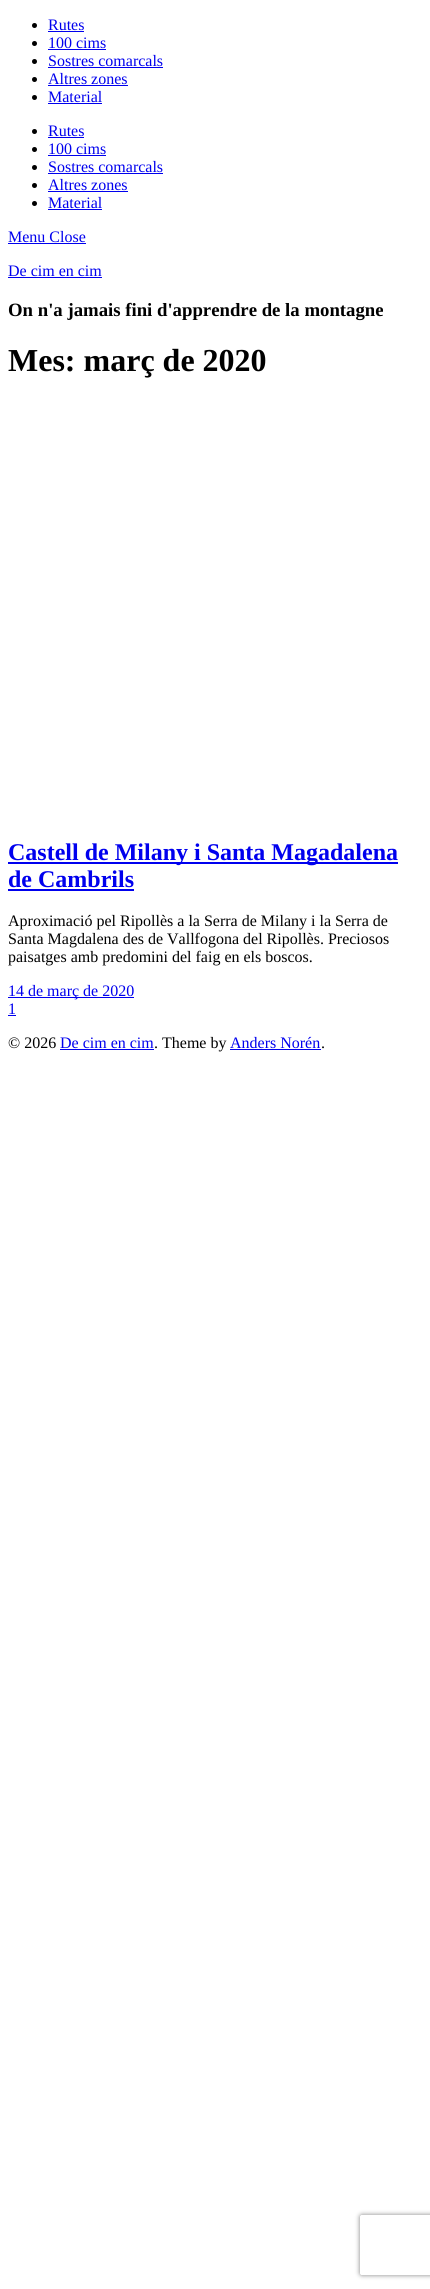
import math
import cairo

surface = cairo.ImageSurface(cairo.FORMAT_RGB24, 430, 2289)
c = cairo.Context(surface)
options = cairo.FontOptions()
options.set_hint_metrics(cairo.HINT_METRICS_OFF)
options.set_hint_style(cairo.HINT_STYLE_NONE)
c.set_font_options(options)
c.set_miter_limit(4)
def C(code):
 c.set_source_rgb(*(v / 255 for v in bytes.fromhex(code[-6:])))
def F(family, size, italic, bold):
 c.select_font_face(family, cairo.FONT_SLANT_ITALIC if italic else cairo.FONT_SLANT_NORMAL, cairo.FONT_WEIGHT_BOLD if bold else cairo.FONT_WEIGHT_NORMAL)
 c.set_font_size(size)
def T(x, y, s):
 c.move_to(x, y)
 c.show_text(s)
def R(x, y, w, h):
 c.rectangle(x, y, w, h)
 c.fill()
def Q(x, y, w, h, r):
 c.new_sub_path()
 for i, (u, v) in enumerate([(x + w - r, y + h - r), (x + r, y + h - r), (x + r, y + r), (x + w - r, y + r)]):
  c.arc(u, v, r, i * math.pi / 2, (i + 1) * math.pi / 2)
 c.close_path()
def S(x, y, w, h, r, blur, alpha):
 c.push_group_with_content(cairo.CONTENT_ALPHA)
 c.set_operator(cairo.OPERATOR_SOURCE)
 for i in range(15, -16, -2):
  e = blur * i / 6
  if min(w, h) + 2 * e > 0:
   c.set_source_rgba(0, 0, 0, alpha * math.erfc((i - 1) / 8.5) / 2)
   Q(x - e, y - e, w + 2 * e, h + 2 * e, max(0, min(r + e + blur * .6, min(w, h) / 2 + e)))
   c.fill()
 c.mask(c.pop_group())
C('ffffff')
c.paint()
C('000000')
c.arc(34.5,25.5,2.5,0,2 * math.pi)
c.fill()
F('Liberation Serif',16,0,0)
C('0000ee')
T(48,30,'Rutes')
R(48,31,36,1)
C('000000')
c.new_path()
c.arc(34.5,43.5,2.5,0,2 * math.pi)
c.fill()
C('0000ee')
T(48,48,'100 cims')
R(48,49,58,1)
C('000000')
c.new_path()
c.arc(34.5,61.5,2.5,0,2 * math.pi)
c.fill()
C('0000ee')
T(48,66,'Sostres comarcals')
R(48,67,115,1)
C('000000')
c.new_path()
c.arc(34.5,79.5,2.5,0,2 * math.pi)
c.fill()
C('0000ee')
T(48,84,'Altres zones')
R(48,85,80,1)
C('000000')
c.new_path()
c.arc(34.5,97.5,2.5,0,2 * math.pi)
c.fill()
C('0000ee')
T(48,102,'Material')
R(48,103,54,1)
C('000000')
c.new_path()
c.arc(34.5,131.5,2.5,0,2 * math.pi)
c.fill()
C('0000ee')
T(48,136,'Rutes')
R(48,137,36,1)
C('000000')
c.new_path()
c.arc(34.5,149.5,2.5,0,2 * math.pi)
c.fill()
C('0000ee')
T(48,154,'100 cims')
R(48,155,58,1)
C('000000')
c.new_path()
c.arc(34.5,167.5,2.5,0,2 * math.pi)
c.fill()
C('0000ee')
T(48,172,'Sostres comarcals')
R(48,173,115,1)
C('000000')
c.new_path()
c.arc(34.5,185.5,2.5,0,2 * math.pi)
c.fill()
C('0000ee')
T(48,190,'Altres zones')
R(48,191,80,1)
C('000000')
c.new_path()
c.arc(34.5,203.5,2.5,0,2 * math.pi)
c.fill()
C('0000ee')
T(48,208,'Material')
R(48,209,54,1)
T(8,242,'Menu Close')
R(8,243,78,1)
T(8,276,'De cim en cim')
R(8,277,94,1)
F('Liberation Serif',18.75,0,1)
C('000000')
T(8,316,'On n\'a jamais fini d\'apprendre de la montagne')
F('Liberation Serif',32,0,1)
T(8,371,'Mes: març de 2020')
C('0000ee')
R(8,862,390,2)
F('Liberation Serif',24,0,1)
T(8,860,'Castell de Milany i Santa Magadalena')
T(8,887,'de Cambrils')
R(8,889,126,2)
F('Liberation Serif',16,0,0)
C('000000')
T(8,926,'Aproximació pel Ripollès a la Serra de Milany i la Serra de')
T(8,944,'Santa Magdalena des de Vallfogona del Ripollès. Preciosos')
T(8,962,'paisatges amb predomini del faig en els boscos.')
C('0000ee')
R(8,997,126,1)
T(8,996,'14 de març de 2020')
T(8,1014,'1')
R(8,1015,8,1)
C('000000')
T(8,1048,'© 2026')
C('0000ee')
T(60,1048,'De cim en cim')
R(60,1049,94,1)
C('000000')
T(154,1048,'. Theme by')
C('0000ee')
T(230,1048,'Anders Norén')
R(230,1049,91,1)
C('000000')
T(321,1048,'.')
c.save()
c.set_fill_rule(cairo.FILL_RULE_EVEN_ODD)
c.new_path()
c.move_to(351,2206)
c.line_to(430,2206)
c.line_to(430,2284)
c.line_to(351,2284)
c.close_path()
c.move_to(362,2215)
c.line_to(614,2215)
c.curve_to(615,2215,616,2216,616,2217)
c.line_to(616,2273)
c.curve_to(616,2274,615,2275,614,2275)
c.line_to(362,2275)
c.curve_to(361,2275,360,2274,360,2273)
c.line_to(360,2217)
c.curve_to(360,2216,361,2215,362,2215)
c.close_path()
c.clip()
C('808080')
S(360,2215,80,60,2,2.5,1)
c.restore()
surface.write_to_png('o.png')
